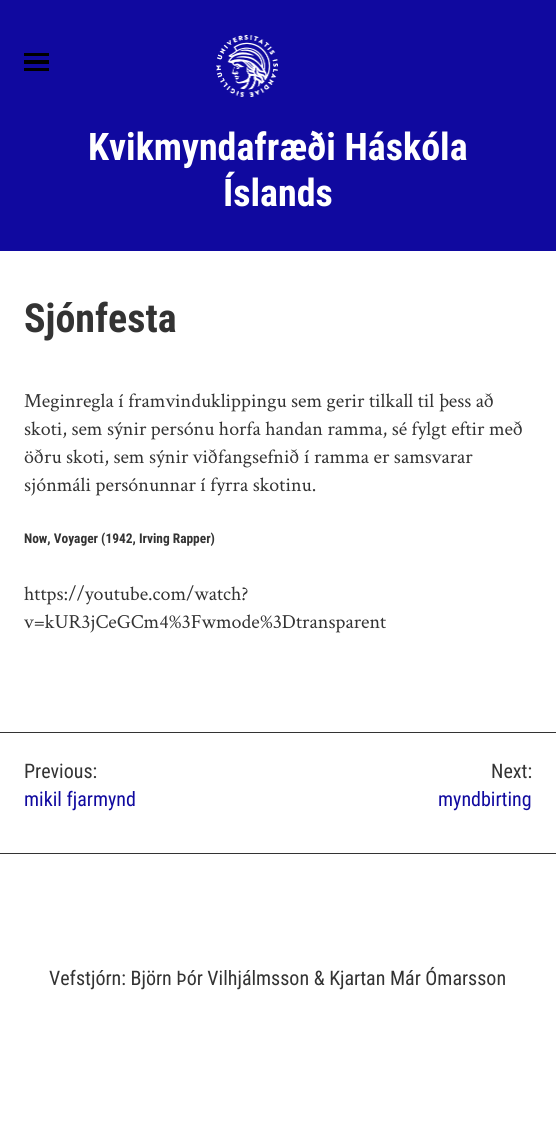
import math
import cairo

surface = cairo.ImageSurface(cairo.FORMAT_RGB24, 556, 1128)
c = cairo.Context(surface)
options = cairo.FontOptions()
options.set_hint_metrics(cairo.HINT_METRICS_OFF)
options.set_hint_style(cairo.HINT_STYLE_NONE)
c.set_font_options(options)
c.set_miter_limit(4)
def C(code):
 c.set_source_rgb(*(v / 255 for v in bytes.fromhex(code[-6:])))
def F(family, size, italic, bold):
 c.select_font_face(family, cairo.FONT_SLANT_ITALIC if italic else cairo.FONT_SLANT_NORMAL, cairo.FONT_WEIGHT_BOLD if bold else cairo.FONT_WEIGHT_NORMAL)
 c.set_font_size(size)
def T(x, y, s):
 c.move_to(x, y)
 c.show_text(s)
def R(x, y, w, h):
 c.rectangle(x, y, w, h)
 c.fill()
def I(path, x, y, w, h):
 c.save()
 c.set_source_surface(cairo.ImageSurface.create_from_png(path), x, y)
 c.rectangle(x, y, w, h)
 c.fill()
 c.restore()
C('ffffff')
c.paint()
C('10099f')
R(0,0,556,251)
C('000000')
R(24,53,25,3)
R(24,60,25,4)
R(24,68,25,3)
I('1.png',216,35,62,62)
F('Roboto Condensed',38,0,1)
C('ffffff')
T(88,160,'Kvikmyndafræði Háskóla')
T(223,206,'Íslands')
F('Roboto Condensed',40,0,1)
C('333333')
T(24,332,'Sjónfesta')
F('Crimson Text',20,0,0)
T(24,407,'Meginregla í framvinduklippingu sem gerir tilkall til þess að')
T(24,435,'skoti, sem sýnir persónu horfa handan ramma, sé fylgt eftir með')
T(24,463,'öðru skoti, sem sýnir viðfangsefnið í ramma er samsvarar')
T(24,491,'sjónmáli persónunnar í fyrra skotinu.')
F('Roboto Condensed',13.4,0,1)
T(24,543,'Now, Voyager (1942, Irving Rapper)')
F('Crimson Text',20,0,0)
T(24,600,'https://youtube.com/watch?')
T(24,628,'v=kUR3jCeGCm4%3Fwmode%3Dtransparent')
R(0,732,556,1)
R(0,853,556,1)
F('Roboto Condensed',20,0,0)
T(24,778,'Previous:')
C('10099f')
T(24,806,'mikil fjarmynd')
C('333333')
T(491,778,'Next:')
C('10099f')
T(438,806,'myndbirting')
C('333333')
T(49,985,'Vefstjórn: Björn Þór Vilhjálmsson & Kjartan Már Ómarsson')
surface.write_to_png('o.png')
